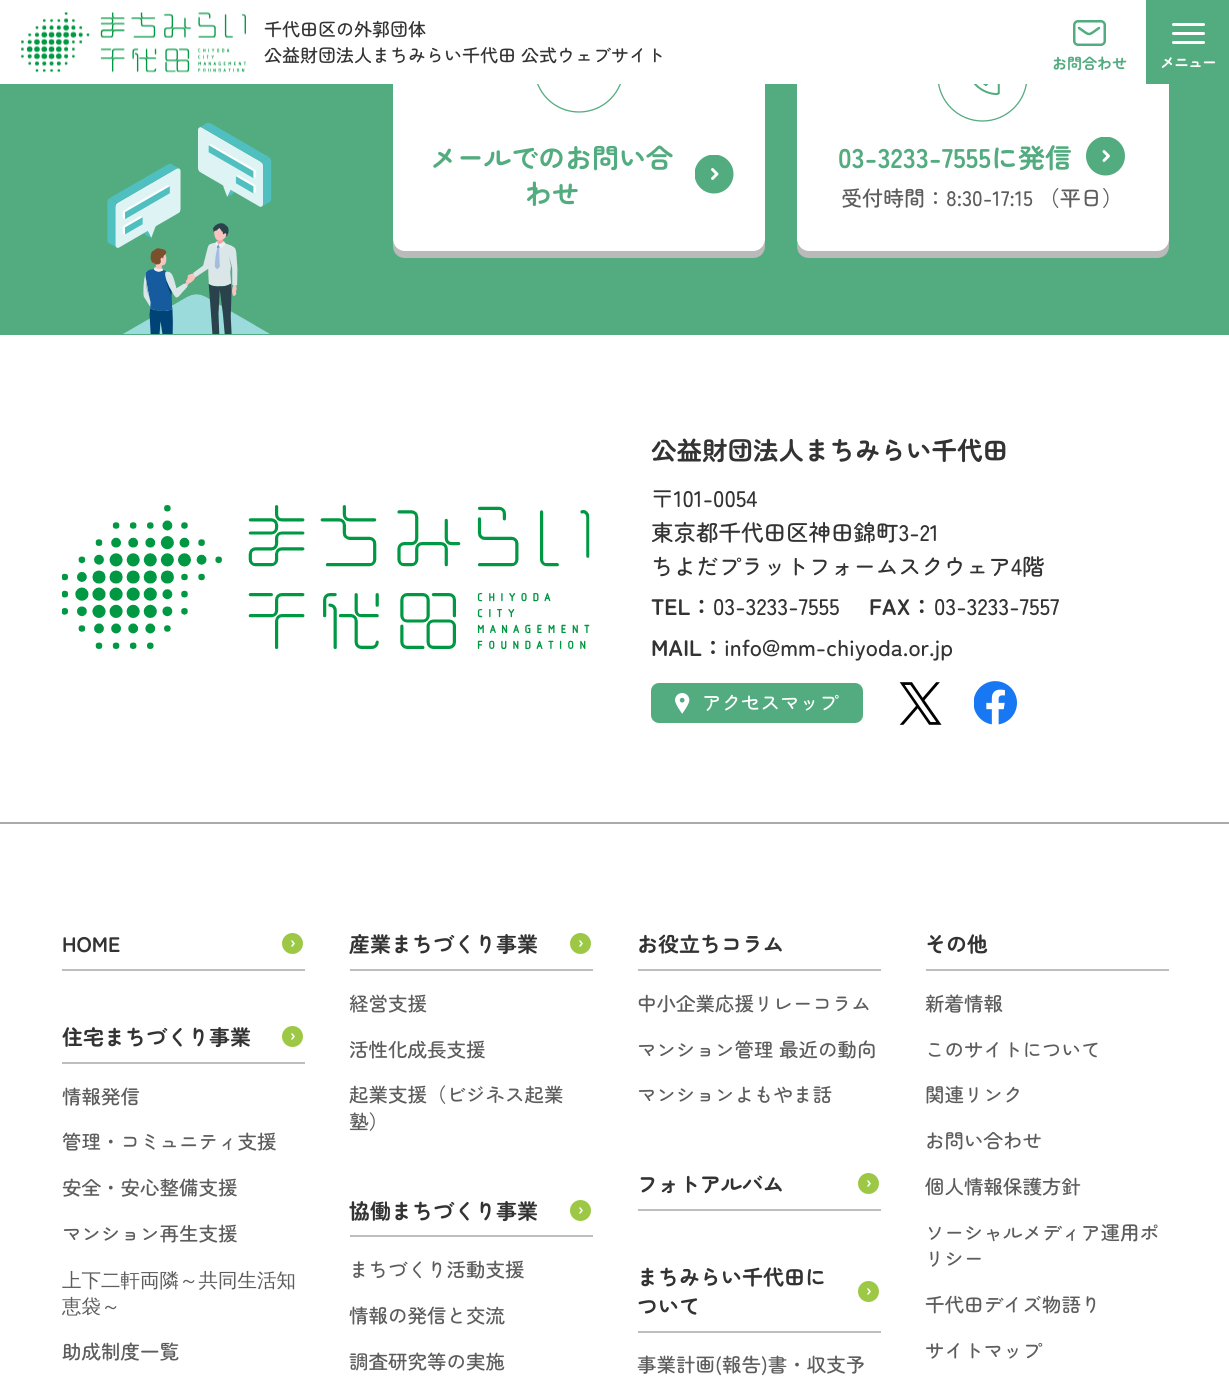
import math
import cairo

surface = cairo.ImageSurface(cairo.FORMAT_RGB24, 1229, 1383)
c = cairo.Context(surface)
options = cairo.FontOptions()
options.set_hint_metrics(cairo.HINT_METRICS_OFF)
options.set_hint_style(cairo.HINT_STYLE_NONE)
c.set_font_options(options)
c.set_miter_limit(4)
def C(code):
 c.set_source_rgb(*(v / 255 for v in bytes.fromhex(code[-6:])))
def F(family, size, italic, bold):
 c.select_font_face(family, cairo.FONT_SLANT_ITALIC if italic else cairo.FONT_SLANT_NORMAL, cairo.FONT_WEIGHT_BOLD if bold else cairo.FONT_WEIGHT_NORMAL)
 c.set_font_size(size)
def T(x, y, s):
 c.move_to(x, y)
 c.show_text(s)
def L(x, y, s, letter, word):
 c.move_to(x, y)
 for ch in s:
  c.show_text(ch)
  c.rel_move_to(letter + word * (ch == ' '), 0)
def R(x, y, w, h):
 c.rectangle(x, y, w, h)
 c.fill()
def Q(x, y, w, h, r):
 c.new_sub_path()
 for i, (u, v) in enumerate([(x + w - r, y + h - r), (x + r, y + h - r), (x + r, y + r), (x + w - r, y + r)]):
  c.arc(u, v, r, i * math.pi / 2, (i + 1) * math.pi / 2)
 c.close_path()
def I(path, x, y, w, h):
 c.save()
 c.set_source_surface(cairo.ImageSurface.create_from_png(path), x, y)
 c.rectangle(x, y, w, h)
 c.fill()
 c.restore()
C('ffffff')
c.paint()
C('53ac7f')
R(0,84,1229,251)
C('bababa')
c.new_path()
c.move_to(393,238)
c.line_to(393,246)
c.curve_to(393,253,398,258,405,258)
c.line_to(753,258)
c.curve_to(760,258,765,253,765,246)
c.line_to(765,238)
c.curve_to(765,245,760,250,753,250)
c.line_to(405,250)
c.curve_to(398,250,393,245,393,238)
c.close_path()
c.fill()
C('ffffff')
Q(393,-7,372,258,12)
c.fill()
c.arc(579,67.5,44.5,0,2 * math.pi)
C('53ac7f')
c.set_line_width(1.3)
c.stroke()
C('ffffff')
R(533,22,92,62)
I('1.png',21,12,225,61)
F('Zen Maru Gothic Medium',18,0,0)
C('333333')
T(264,36,'千代田区の外郭団体')
T(264,62,'公益財団法人まちみらい千代田 公式ウェブサイト')
C('bababa')
c.new_path()
c.move_to(797,242)
c.line_to(797,246)
c.curve_to(797,253,802,258,809,258)
c.line_to(1157,258)
c.curve_to(1164,258,1169,253,1169,246)
c.line_to(1169,12)
c.line_to(1168,9)
c.line_to(1168,238)
c.curve_to(1168,245,1163,250,1156,250)
c.line_to(808,250)
c.curve_to(803,250,798,247,797,242)
c.close_path()
c.fill()
C('ffffff')
Q(797,-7,372,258,12)
c.fill()
Q(1074.25,21.25,30.5,23.5,3.75)
C('53ac7f')
c.set_line_width(2.5)
c.stroke()
c.new_path()
c.move_to(1079,28)
c.curve_to(1090.5,36,1087.5,36,1099,28)
c.set_line_cap(cairo.LINE_CAP_ROUND)
c.set_line_join(cairo.LINE_JOIN_ROUND)
c.stroke()
F('Zen Maru Gothic',15,0,1)
T(1052,69,'お問合わせ')
R(1146,0,83,84)
C('ffffff')
Q(1172,32,33,3,1.5)
c.fill()
Q(1172,23,33,3,1.5)
c.fill()
Q(1172,41,33,3,1.5)
c.fill()
L(1160,68,'メニュー',-1,0)
I('2.png',107,123,165,211)
c.save()
c.rectangle(695,155,39,39)
c.clip()
C('53ac7f')
c.arc(714,174,19.5,0,2 * math.pi)
c.fill()
c.restore()
c.new_path()
c.move_to(712.5,169.5)
c.line_to(717,174)
c.line_to(712.5,178.5)
c.set_line_width(2.9)
c.stroke()
F('Zen Maru Gothic',27,0,1)
C('53ac7f')
T(430,168,'メールでのお問い合')
T(525,204,'わせ')
I('3.png',938,84,89,38)
c.save()
c.rectangle(1086,137,39,39)
c.clip()
c.arc(1105.5,156,19.5,0,2 * math.pi)
c.fill()
c.restore()
c.new_path()
c.move_to(1104,151.5)
c.line_to(1108.5,156)
c.line_to(1104,160.5)
C('ffffff')
c.stroke()
C('53ac7f')
T(838,168,'03-3233-7555に発信')
F('Zen Maru Gothic Medium',21,0,0)
C('5d5d5d')
T(841,206,'受付時間：8:30-17:15 （平日）')
C('aaaaaa')
R(0,822,1229,2)
I('4.png',62,505,528,144)
F('Zen Maru Gothic',25.5,0,1)
C('333333')
T(651,460,'公益財団法人まちみらい千代田')
F('Zen Maru Gothic Medium',22.5,0,0)
T(651,507,'〒101-0054')
T(651,541,'東京都千代田区神田錦町3-21')
T(651,575,'ちよだプラットフォームスクウェア4階')
F('Zen Maru Gothic',22.5,0,1)
T(651,615,'TEL：')
F('Zen Maru Gothic Medium',22.5,0,0)
T(713,615,'03-3233-7555')
F('Zen Maru Gothic',22.5,0,1)
T(869,615,'FAX：')
F('Zen Maru Gothic Medium',22.5,0,0)
T(934,615,'03-3233-7557')
F('Zen Maru Gothic',22.5,0,1)
T(651,656,'MAIL：')
F('Zen Maru Gothic Medium',22.5,0,0)
T(724,656,'info@mm-chiyoda.or.jp')
C('53ac7f')
Q(651,683,212,40,8)
c.fill()
I('5.png',675,693,15,21)
F('Zen Maru Gothic Medium',19.5,0,0)
C('ffffff')
T(702,710,'アクセスマップ')
I('6.png',899,682,43,43)
I('7.png',974,681,43,44)
C('9dc846')
c.arc(292.5,943.5,10.5,0,2 * math.pi)
c.fill()
c.new_path()
c.move_to(292,941)
c.line_to(294,943.5)
c.line_to(292,946)
C('ffffff')
c.set_line_width(1.5)
c.stroke()
C('bebebe')
R(62,969,243,2)
F('Zen Maru Gothic',21,0,1)
C('333333')
T(62,952,'HOME')
C('9dc846')
c.new_path()
c.arc(292.5,1036.5,10.5,0,2 * math.pi)
c.fill()
c.new_path()
c.move_to(292,1034)
c.line_to(294,1036.5)
c.line_to(292,1039)
C('ffffff')
c.stroke()
C('bebebe')
R(62,1062,243,2)
C('333333')
T(62,1045,'住宅まちづくり事業')
F('Zen Maru Gothic Medium',19.5,0,0)
C('5d5d5d')
T(62,1104,'情報発信')
T(62,1149,'管理・コミュニティ支援')
T(62,1195,'安全・安心整備支援')
T(62,1241,'マンション再生支援')
F('WenQuanYi Zen Hei Medium',19.5,0,0)
T(62,1287,'上下二軒両隣～共同生活知')
T(62,1313,'恵袋～')
F('Zen Maru Gothic Medium',19.5,0,0)
T(62,1359,'助成制度一覧')
C('9dc846')
c.new_path()
c.arc(580.5,943.5,10.5,0,2 * math.pi)
c.fill()
c.new_path()
c.move_to(580,941)
c.line_to(582,943.5)
c.line_to(580,946)
C('ffffff')
c.stroke()
C('bebebe')
R(350,969,243,2)
F('Zen Maru Gothic',21,0,1)
C('333333')
T(349,952,'産業まちづくり事業')
F('Zen Maru Gothic Medium',19.5,0,0)
C('5d5d5d')
T(349,1011,'経営支援')
T(349,1057,'活性化成長支援')
T(349,1102,'起業支援（ビジネス起業')
T(349,1129,'塾）')
C('9dc846')
c.new_path()
c.arc(580.5,1210.5,10.5,0,2 * math.pi)
c.fill()
c.new_path()
c.move_to(580,1208)
c.line_to(582,1210.5)
c.line_to(580,1213)
C('ffffff')
c.stroke()
C('bebebe')
R(350,1235,243,2)
F('Zen Maru Gothic',21,0,1)
C('333333')
T(349,1219,'協働まちづくり事業')
F('Zen Maru Gothic Medium',19.5,0,0)
C('5d5d5d')
T(349,1277,'まちづくり活動支援')
T(349,1323,'情報の発信と交流')
T(349,1369,'調査研究等の実施')
C('bebebe')
R(638,969,243,2)
F('Zen Maru Gothic',21,0,1)
C('333333')
T(637,952,'お役立ちコラム')
F('Zen Maru Gothic Medium',19.5,0,0)
C('5d5d5d')
T(637,1011,'中小企業応援リレーコラム')
T(637,1057,'マンション管理 最近の動向')
T(637,1102,'マンションよもやま話')
C('9dc846')
c.new_path()
c.arc(868.5,1183.5,10.5,0,2 * math.pi)
c.fill()
c.new_path()
c.move_to(868,1181)
c.line_to(870,1183.5)
c.line_to(868,1186)
C('ffffff')
c.stroke()
C('bebebe')
R(638,1209,243,2)
F('Zen Maru Gothic',21,0,1)
C('333333')
T(637,1192,'フォトアルバム')
C('9dc846')
c.new_path()
c.arc(868.5,1291.5,10.5,0,2 * math.pi)
c.fill()
c.new_path()
c.move_to(868,1289)
c.line_to(870,1291.5)
c.line_to(868,1294)
C('ffffff')
c.stroke()
C('bebebe')
R(638,1331,243,2)
C('333333')
T(637,1285,'まちみらい千代田に')
T(637,1314,'ついて')
F('Zen Maru Gothic Medium',19.5,0,0)
C('5d5d5d')
T(637,1372,'事業計画(報告)書・収支予')
C('bebebe')
R(926,969,243,2)
F('Zen Maru Gothic',21,0,1)
C('333333')
T(925,952,'その他')
F('Zen Maru Gothic Medium',19.5,0,0)
C('5d5d5d')
T(925,1011,'新着情報')
T(925,1057,'このサイトについて')
T(925,1102,'関連リンク')
T(925,1148,'お問い合わせ')
T(925,1194,'個人情報保護方針')
T(925,1240,'ソーシャルメディア運用ポ')
T(925,1266,'リシー')
T(925,1312,'千代田デイズ物語り')
T(925,1358,'サイトマップ')
surface.write_to_png('o.png')
